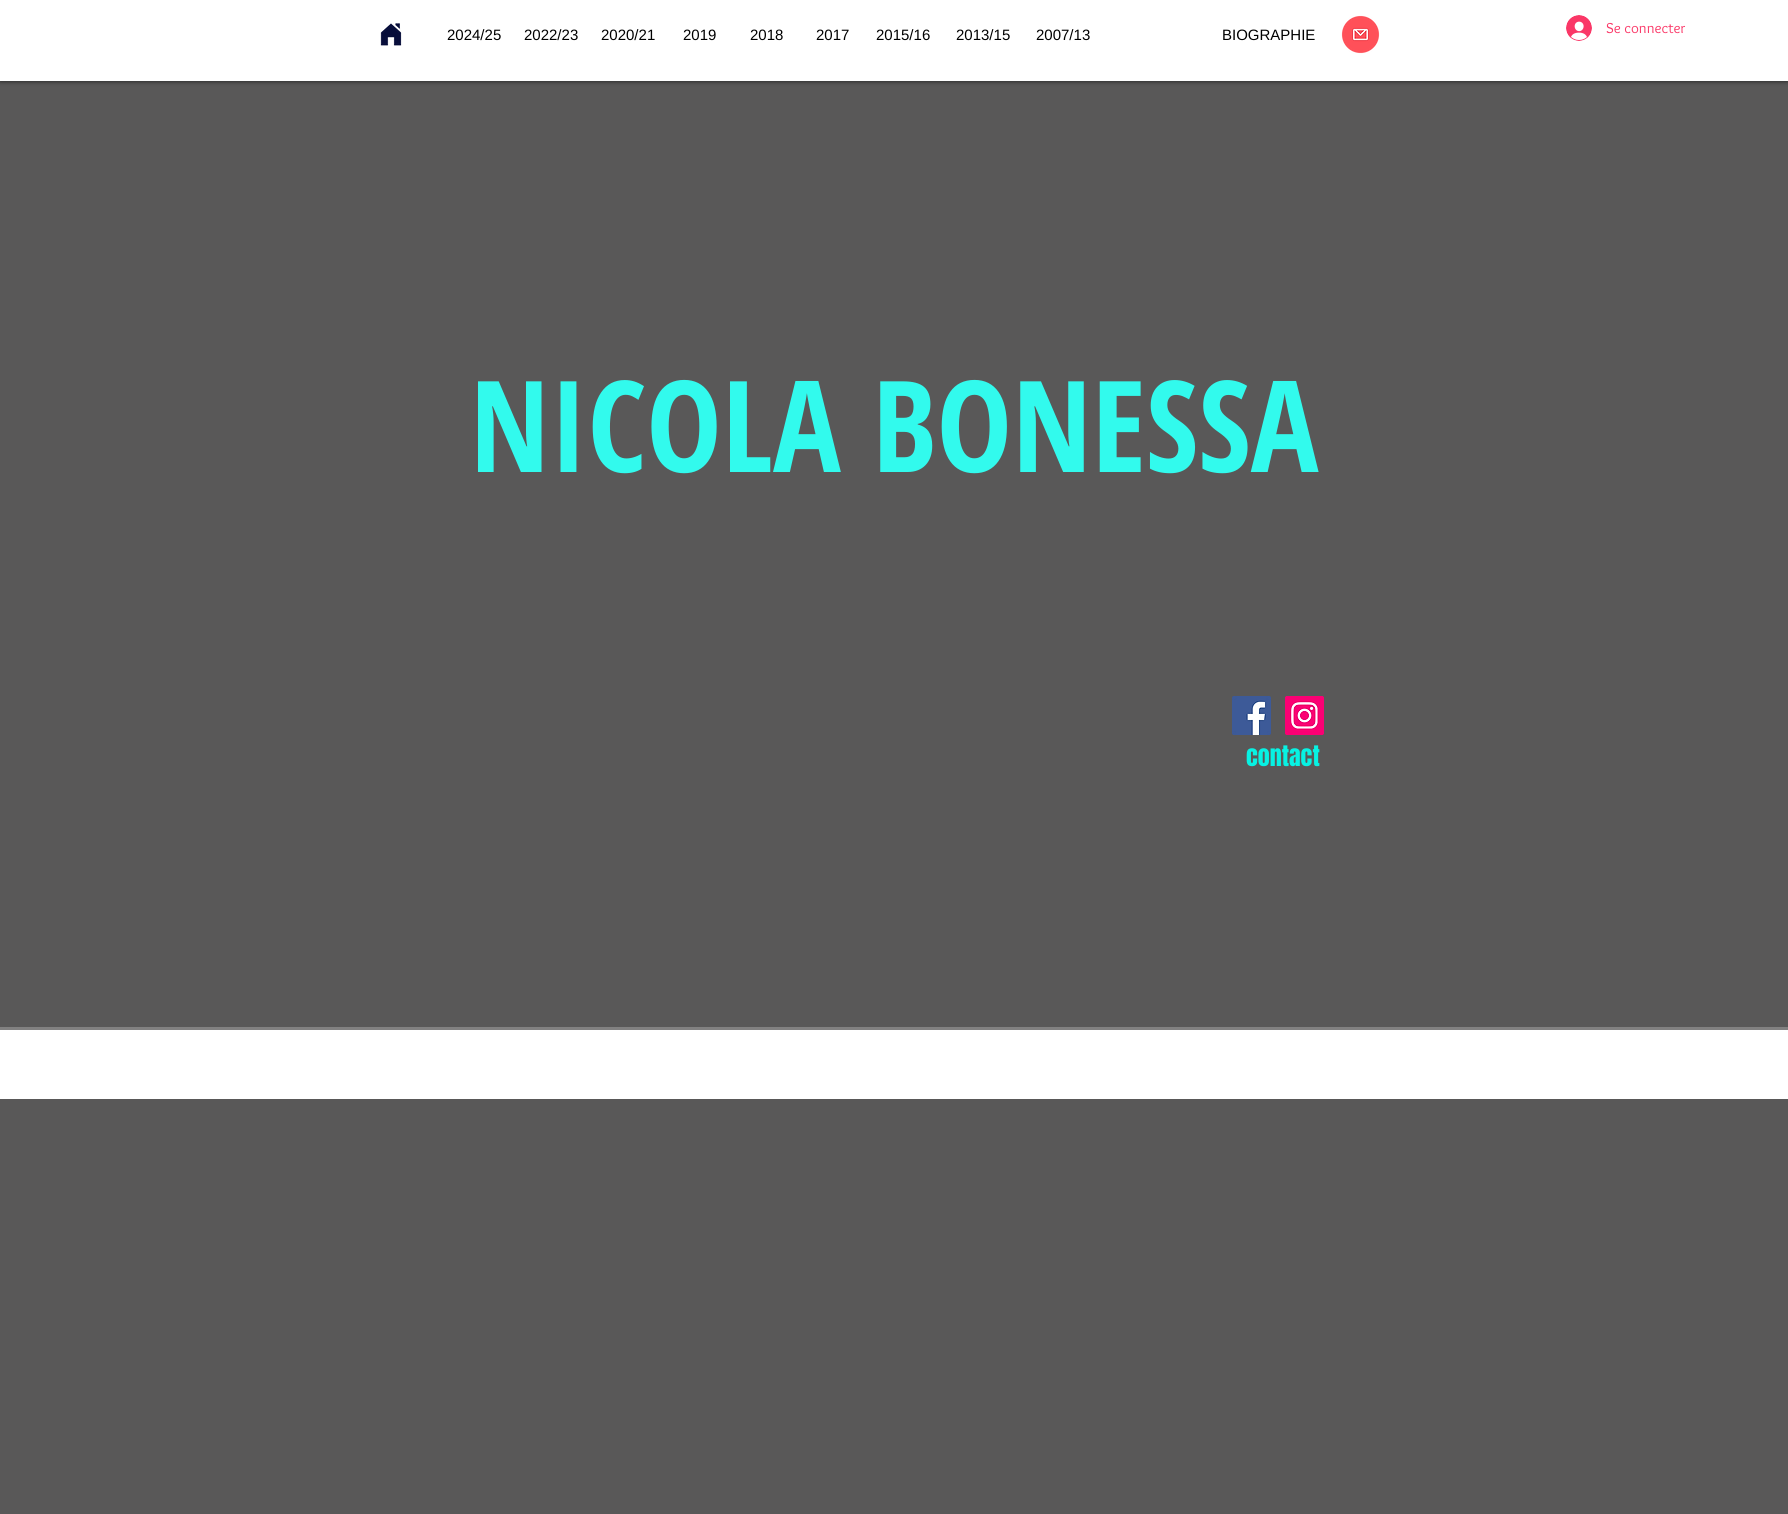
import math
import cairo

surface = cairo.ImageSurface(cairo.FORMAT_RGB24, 1788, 1514)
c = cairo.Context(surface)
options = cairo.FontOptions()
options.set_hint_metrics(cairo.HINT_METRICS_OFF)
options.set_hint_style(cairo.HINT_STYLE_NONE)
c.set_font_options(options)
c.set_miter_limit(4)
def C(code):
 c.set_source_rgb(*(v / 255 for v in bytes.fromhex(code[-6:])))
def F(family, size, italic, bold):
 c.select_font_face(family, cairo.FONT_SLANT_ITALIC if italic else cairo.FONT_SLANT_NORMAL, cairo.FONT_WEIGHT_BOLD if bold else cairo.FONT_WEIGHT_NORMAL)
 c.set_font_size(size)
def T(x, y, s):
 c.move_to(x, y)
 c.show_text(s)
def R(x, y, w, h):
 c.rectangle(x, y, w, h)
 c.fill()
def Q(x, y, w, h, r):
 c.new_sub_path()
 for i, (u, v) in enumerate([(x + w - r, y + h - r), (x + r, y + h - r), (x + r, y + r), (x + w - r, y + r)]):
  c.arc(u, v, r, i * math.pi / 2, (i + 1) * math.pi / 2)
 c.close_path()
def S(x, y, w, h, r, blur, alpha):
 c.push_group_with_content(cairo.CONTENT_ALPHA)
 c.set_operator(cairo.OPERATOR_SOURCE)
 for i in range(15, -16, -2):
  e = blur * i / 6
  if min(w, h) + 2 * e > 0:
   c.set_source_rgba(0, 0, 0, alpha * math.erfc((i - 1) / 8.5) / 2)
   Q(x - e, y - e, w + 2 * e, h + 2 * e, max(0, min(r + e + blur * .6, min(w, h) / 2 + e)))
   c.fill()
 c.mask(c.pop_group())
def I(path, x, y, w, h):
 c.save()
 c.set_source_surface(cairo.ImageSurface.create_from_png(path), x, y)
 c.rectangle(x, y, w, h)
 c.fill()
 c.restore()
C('595858')
c.paint()
C('000000')
S(0,0,1788,81,0,2.5,.7)
C('ffffff')
R(0,0,1788,81)
I('1.png',380,23,22,23)
F('Liberation Sans',15,0,0)
C('000000')
T(447,40,'2024/25')
T(524,40,'2022/23')
T(601,40,'2020/21')
T(683,40,'2019')
T(750,40,'2018')
T(816,40,'2017')
T(876,40,'2015/16')
T(956,40,'2013/15')
T(1036,40,'2007/13')
T(1222,40,'BIOGRAPHIE')
I('2.png',1341,15,39,39)
I('3.png',1566,15,26,26)
F('Overlock',15,0,0)
C('fa3767')
T(1606,33,'Se connecter')
F('Open Sans Condensed',127,0,1)
C('32faed')
T(470,472,'NICOLA BONESSA')
I('4.png',1232,696,39,39)
I('5.png',1285,696,39,39)
F('Anton',24,0,0)
C('07f2e3')
T(1246,766,'contact')
C('828181')
R(0,1027,1788,3)
C('ffffff')
R(0,1030,1788,69)
surface.write_to_png('o.png')
